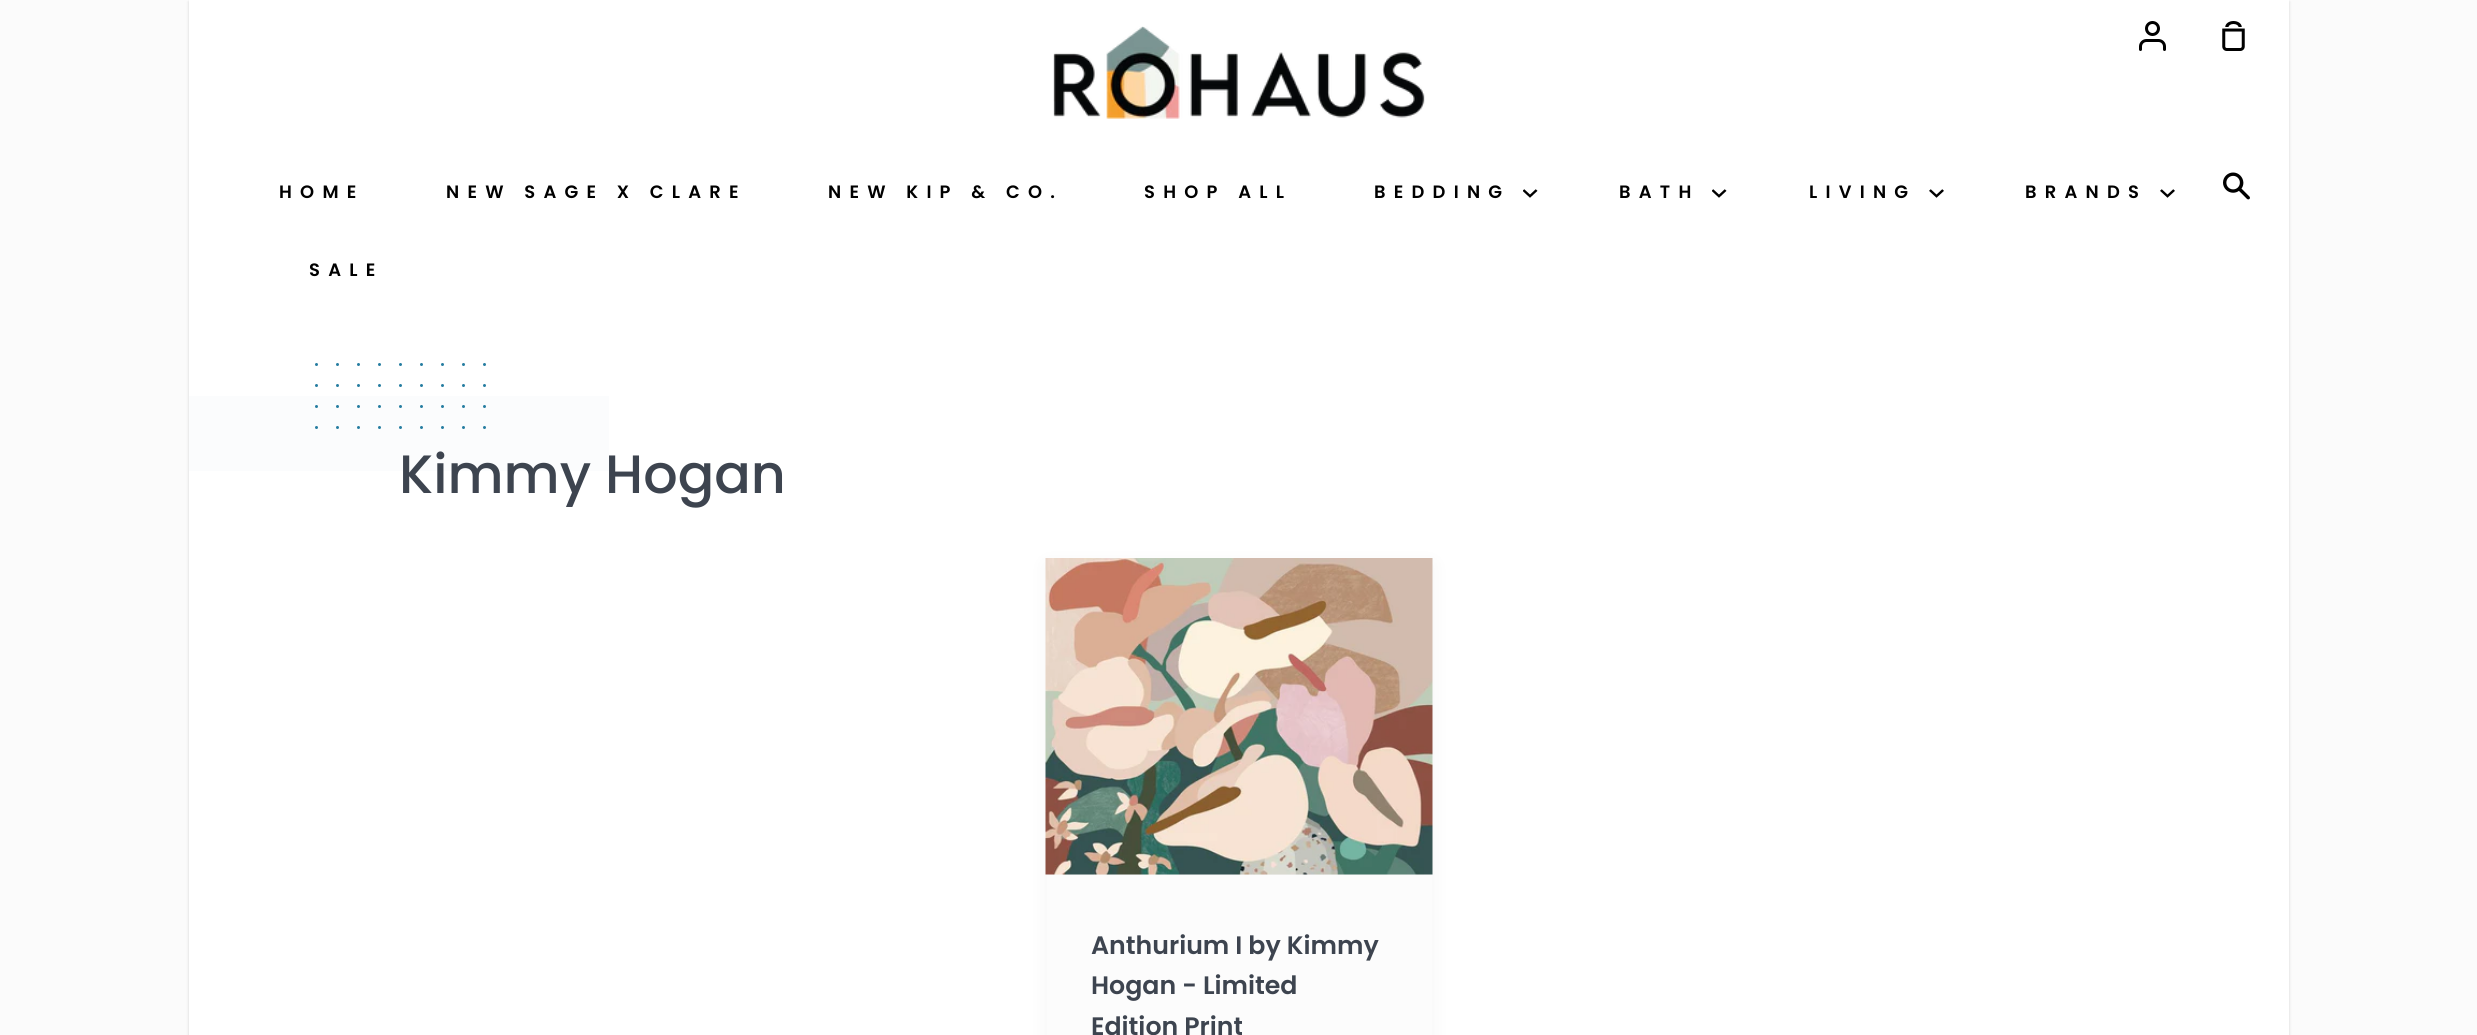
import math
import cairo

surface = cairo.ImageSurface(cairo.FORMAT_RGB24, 2477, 1035)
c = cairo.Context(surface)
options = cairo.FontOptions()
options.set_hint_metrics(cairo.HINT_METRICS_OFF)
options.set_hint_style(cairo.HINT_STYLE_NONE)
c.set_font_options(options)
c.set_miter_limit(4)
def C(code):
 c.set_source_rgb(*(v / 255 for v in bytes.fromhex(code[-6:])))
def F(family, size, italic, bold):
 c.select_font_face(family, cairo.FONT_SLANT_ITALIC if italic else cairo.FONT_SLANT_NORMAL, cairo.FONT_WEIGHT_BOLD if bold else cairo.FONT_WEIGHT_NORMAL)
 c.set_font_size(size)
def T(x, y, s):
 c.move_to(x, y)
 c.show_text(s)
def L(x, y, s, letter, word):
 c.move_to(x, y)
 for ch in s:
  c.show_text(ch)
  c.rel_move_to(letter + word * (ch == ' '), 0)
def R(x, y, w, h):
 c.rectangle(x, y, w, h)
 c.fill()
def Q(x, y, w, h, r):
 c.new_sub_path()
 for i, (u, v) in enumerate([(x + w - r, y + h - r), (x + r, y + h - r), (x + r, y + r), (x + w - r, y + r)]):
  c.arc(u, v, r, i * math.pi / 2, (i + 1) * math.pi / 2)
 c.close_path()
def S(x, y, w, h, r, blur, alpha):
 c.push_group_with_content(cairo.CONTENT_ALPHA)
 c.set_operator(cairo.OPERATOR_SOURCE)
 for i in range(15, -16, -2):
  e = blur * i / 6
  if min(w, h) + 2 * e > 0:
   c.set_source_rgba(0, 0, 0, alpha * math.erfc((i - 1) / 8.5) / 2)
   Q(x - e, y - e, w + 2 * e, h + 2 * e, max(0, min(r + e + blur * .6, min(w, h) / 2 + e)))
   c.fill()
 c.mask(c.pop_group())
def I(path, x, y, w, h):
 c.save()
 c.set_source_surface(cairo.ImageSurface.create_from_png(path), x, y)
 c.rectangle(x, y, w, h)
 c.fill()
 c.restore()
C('fbfbfb')
c.paint()
C('000000')
S(189,2,2100,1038,0,1.5,.08)
S(189,2,2100,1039,0,2,.08)
C('ffffff')
R(189,0,2100,1035)
I('1.png',1053,26,372,93)
I('2.png',2139,21,27,30)
I('3.png',2222,21,23,30)
F('Poppins SemiBold',17.9,0,0)
C('000000')
L(279,198,'HOME',8.25,0)
L(446,198,'NEW SAGE X CLARE',8.25,0)
L(828,198,'NEW KIP & CO.',8.25,0)
L(1144,198,'SHOP ALL',8.25,0)
L(1374,198,'BEDDING',8.25,0)
I('4.png',1523,189,15,9)
L(1619,198,'BATH',8.25,0)
I('4.png',1712,189,15,9)
L(1809,198,'LIVING',8.25,0)
I('5.png',1929,189,15,9)
L(2025,198,'BRANDS',8.25,0)
I('5.png',2160,189,15,9)
L(309,276,'SALE',8.25,0)
I('6.png',2223,172,27,28)
C('267da1')
c.arc(316.5,364.5,1.5,0,2 * math.pi)
c.fill()
c.arc(337.5,364.5,1.5,0,2 * math.pi)
c.fill()
c.arc(358.5,364.5,1.5,0,2 * math.pi)
c.fill()
c.arc(379.5,364.5,1.5,0,2 * math.pi)
c.fill()
c.arc(400.5,364.5,1.5,0,2 * math.pi)
c.fill()
c.arc(421.5,364.5,1.5,0,2 * math.pi)
c.fill()
c.arc(442.5,364.5,1.5,0,2 * math.pi)
c.fill()
c.arc(463.5,364.5,1.5,0,2 * math.pi)
c.fill()
c.arc(484.5,364.5,1.5,0,2 * math.pi)
c.fill()
c.arc(316.5,385.5,1.5,0,2 * math.pi)
c.fill()
c.arc(337.5,385.5,1.5,0,2 * math.pi)
c.fill()
c.arc(358.5,385.5,1.5,0,2 * math.pi)
c.fill()
c.arc(379.5,385.5,1.5,0,2 * math.pi)
c.fill()
c.arc(400.5,385.5,1.5,0,2 * math.pi)
c.fill()
c.arc(421.5,385.5,1.5,0,2 * math.pi)
c.fill()
c.arc(442.5,385.5,1.5,0,2 * math.pi)
c.fill()
c.arc(463.5,385.5,1.5,0,2 * math.pi)
c.fill()
c.arc(484.5,385.5,1.5,0,2 * math.pi)
c.fill()
C('fbfcfd')
R(189,396,420,75)
C('267da1')
c.arc(316.5,406.5,1.5,0,2 * math.pi)
c.fill()
c.arc(337.5,406.5,1.5,0,2 * math.pi)
c.fill()
c.arc(358.5,406.5,1.5,0,2 * math.pi)
c.fill()
c.arc(379.5,406.5,1.5,0,2 * math.pi)
c.fill()
c.arc(400.5,406.5,1.5,0,2 * math.pi)
c.fill()
c.arc(421.5,406.5,1.5,0,2 * math.pi)
c.fill()
c.arc(442.5,406.5,1.5,0,2 * math.pi)
c.fill()
c.arc(463.5,406.5,1.5,0,2 * math.pi)
c.fill()
c.arc(484.5,406.5,1.5,0,2 * math.pi)
c.fill()
c.arc(316.5,427.5,1.5,0,2 * math.pi)
c.fill()
c.arc(337.5,427.5,1.5,0,2 * math.pi)
c.fill()
c.arc(358.5,427.5,1.5,0,2 * math.pi)
c.fill()
c.arc(379.5,427.5,1.5,0,2 * math.pi)
c.fill()
c.arc(400.5,427.5,1.5,0,2 * math.pi)
c.fill()
c.arc(421.5,427.5,1.5,0,2 * math.pi)
c.fill()
c.arc(442.5,427.5,1.5,0,2 * math.pi)
c.fill()
c.arc(463.5,427.5,1.5,0,2 * math.pi)
c.fill()
c.arc(484.5,427.5,1.5,0,2 * math.pi)
c.fill()
F('Poppins Medium',54,0,0)
C('3d444f')
T(399,493,'Kimmy Hogan')
C('808080')
S(1046,564,387,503,0,10.5,.08)
I('7.png',1045,558,388,317)
C('fcfcfc')
R(1047,875,385,160)
F('Poppins SemiBold',25.25,0,0)
C('3d444f')
T(1091,954,'Anthurium I by Kimmy')
T(1091,994,'Hogan - Limited')
T(1091,1035,'Edition Print')
surface.write_to_png('o.png')
